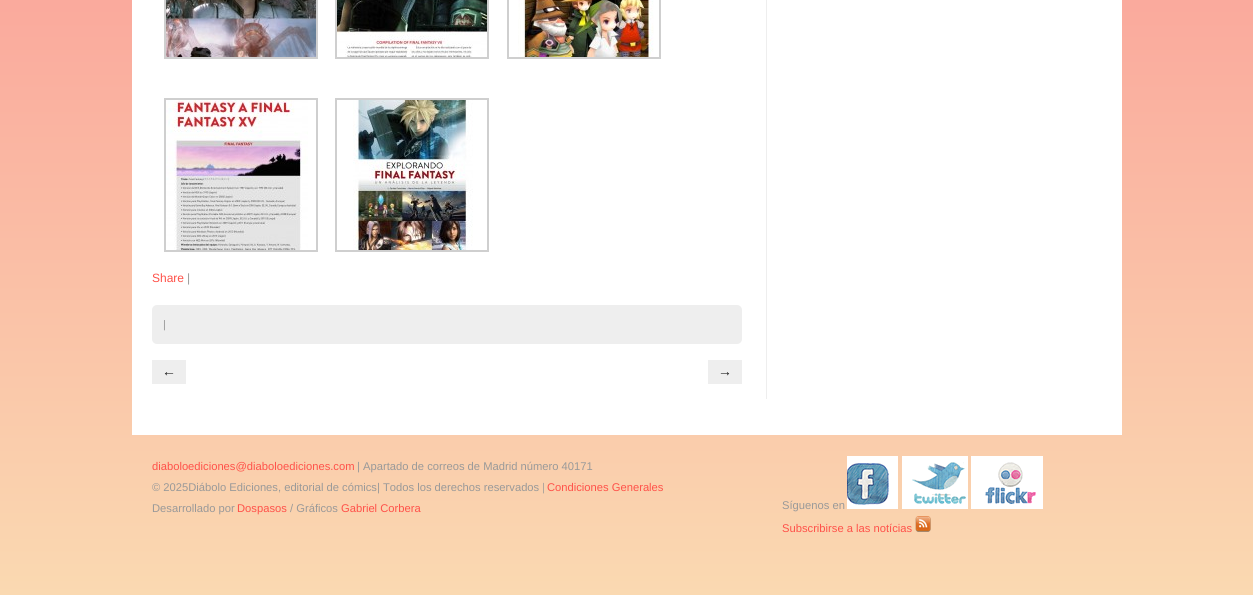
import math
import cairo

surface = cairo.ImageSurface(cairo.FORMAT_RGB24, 1253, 595)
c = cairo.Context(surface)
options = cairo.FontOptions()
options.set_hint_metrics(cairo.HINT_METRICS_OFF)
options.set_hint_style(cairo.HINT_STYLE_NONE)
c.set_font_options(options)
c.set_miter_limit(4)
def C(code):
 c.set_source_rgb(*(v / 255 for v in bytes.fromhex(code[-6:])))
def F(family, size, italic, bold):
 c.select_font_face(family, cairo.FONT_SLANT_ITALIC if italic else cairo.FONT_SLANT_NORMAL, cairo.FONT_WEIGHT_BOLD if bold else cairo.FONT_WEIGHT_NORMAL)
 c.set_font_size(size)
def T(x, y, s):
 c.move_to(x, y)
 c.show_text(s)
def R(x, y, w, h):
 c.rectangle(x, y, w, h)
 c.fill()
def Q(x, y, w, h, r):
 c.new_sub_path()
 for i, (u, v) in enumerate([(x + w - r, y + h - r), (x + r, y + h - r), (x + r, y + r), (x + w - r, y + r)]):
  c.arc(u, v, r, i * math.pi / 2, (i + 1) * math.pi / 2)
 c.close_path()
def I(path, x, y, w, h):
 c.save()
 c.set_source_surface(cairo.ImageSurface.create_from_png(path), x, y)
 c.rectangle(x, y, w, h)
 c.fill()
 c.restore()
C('ffffff')
c.paint()
gradient = cairo.LinearGradient(0,-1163,0,595)
gradient.add_color_stop_rgba(0,1,0.918,0.588,1)
gradient.add_color_stop_rgba(.5,0.98,0.576,0.576,1)
gradient.add_color_stop_rgba(1,0.98,0.851,0.694,1)
c.set_source(gradient)
R(0,0,1253,595)
C('ffffff')
R(132,0,990,435)
C('eeeeee')
R(766,0,1,399)
c.rectangle(165,-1,152,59)
C('cfcfcf')
c.stroke()
I('1.png',166,0,150,57)
c.rectangle(336,-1,152,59)
c.stroke()
I('2.png',337,0,150,57)
c.rectangle(508,-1,152,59)
c.stroke()
I('3.png',518,0,136,57)
c.rectangle(165,99,152,152)
c.stroke()
I('4.png',166,100,142,150)
c.rectangle(336,99,152,152)
c.stroke()
I('5.png',353,100,120,150)
F('Liberation Sans',12,0,0)
C('ff5149')
T(152,282,'Share')
C('999999')
T(187,282,'|')
C('eeeeee')
Q(152,305,590,39,5)
c.fill()
F('Liberation Sans',11,0,0)
C('999999')
T(163,328,'|')
C('eeeeee')
R(152,360,34,24)
F('Liberation Sans',14,0,1)
C('222222')
T(162,376,'←')
C('eeeeee')
R(708,360,34,24)
C('222222')
T(718,376,'→')
F('Liberation Sans',11.2,0,0)
C('ff5149')
T(152,470,'diaboloediciones@diaboloediciones.com')
C('999999')
T(357,470,'| Apartado de correos de Madrid número 40171')
T(152,491,'© 2025Diábolo Ediciones, editorial de cómics| Todos los derechos reservados |')
C('ff5149')
T(547,491,'Condiciones Generales')
C('999999')
T(152,512,'Desarrollado por')
C('ff5149')
T(237,512,'Dospasos')
C('999999')
T(290,512,'/ Gráficos')
C('ff5149')
T(341,512,'Gabriel Corbera')
C('999999')
T(782,509,'Síguenos en')
I('6.png',847,456,51,53)
I('7.png',902,456,66,53)
I('8.png',971,456,72,53)
C('ff5149')
T(782,532,'Subscribirse a las notícias')
I('9.png',915,516,16,16)
surface.write_to_png('o.png')
